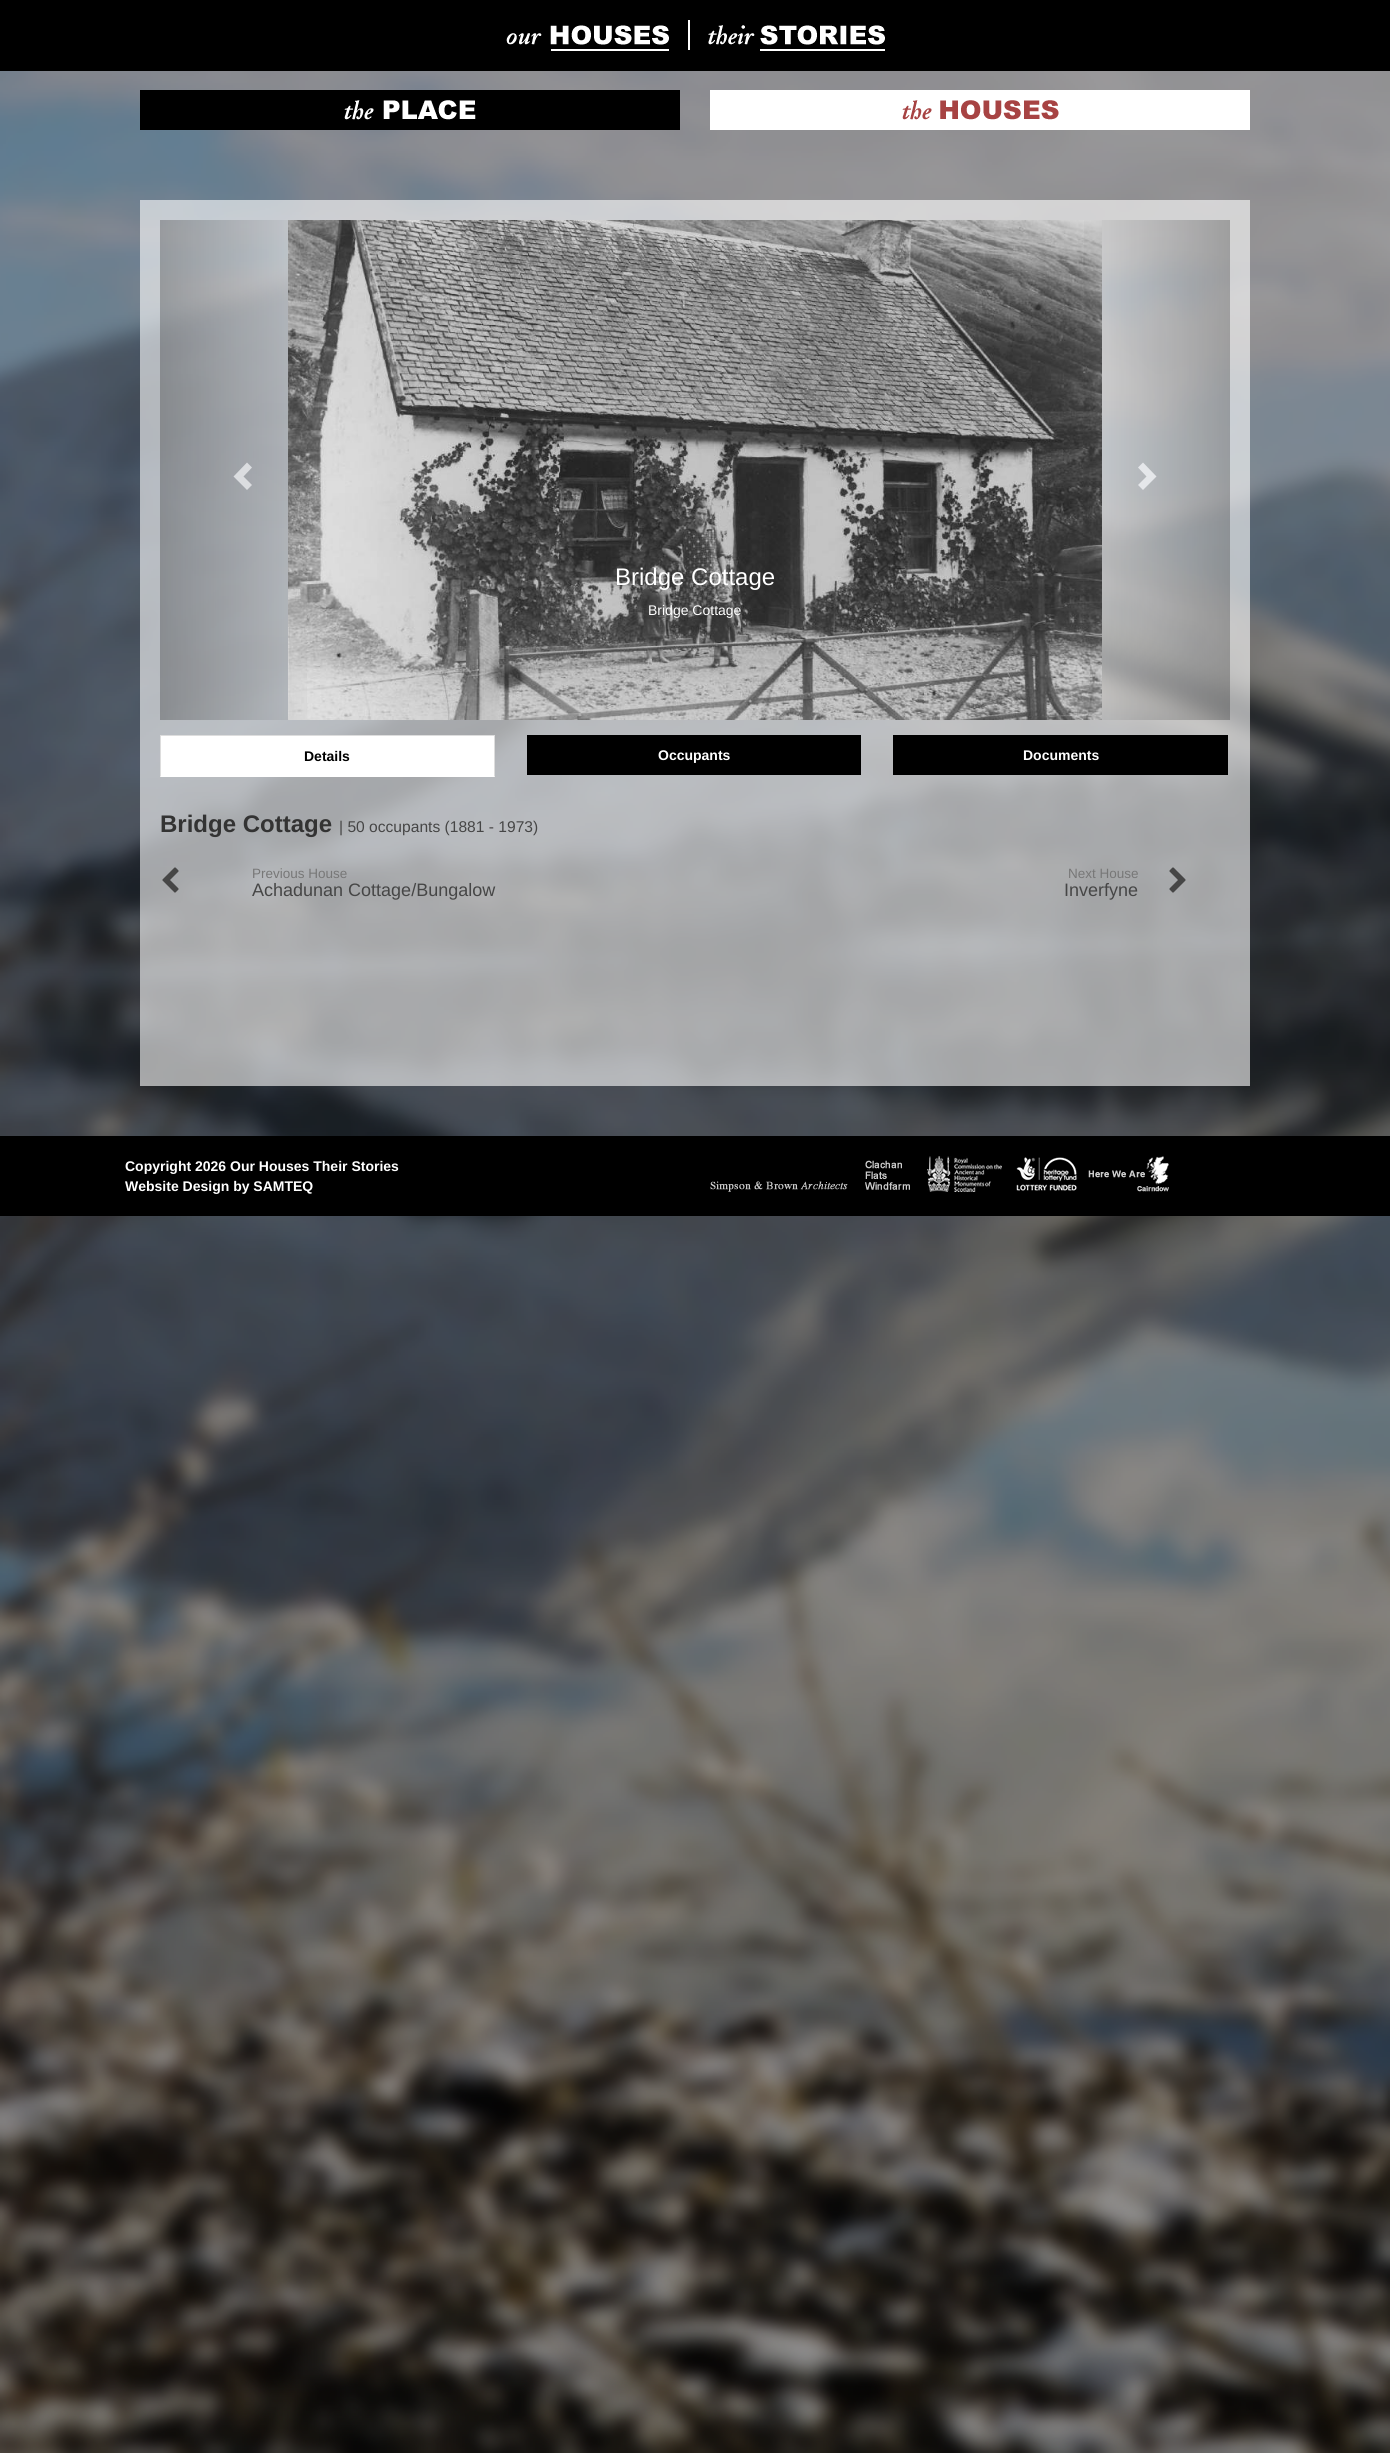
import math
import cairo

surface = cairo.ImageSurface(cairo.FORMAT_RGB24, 1390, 2453)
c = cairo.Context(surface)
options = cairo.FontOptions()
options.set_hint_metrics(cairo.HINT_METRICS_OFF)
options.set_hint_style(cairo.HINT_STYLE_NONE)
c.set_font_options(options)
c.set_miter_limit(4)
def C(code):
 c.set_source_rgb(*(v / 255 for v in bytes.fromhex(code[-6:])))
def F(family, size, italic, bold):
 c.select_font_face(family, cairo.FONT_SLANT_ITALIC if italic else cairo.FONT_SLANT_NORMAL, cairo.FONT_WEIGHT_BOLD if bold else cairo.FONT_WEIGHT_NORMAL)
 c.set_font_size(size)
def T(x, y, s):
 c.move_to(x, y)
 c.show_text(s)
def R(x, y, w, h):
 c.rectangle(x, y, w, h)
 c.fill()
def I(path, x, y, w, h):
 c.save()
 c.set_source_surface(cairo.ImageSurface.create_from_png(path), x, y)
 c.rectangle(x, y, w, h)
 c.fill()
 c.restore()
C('ffffff')
c.paint()
I('1.png',0,1216,1390,1237)
I('2.png',0,71,1390,1065)
C('000000')
R(0,0,1390,71)
I('3.png',506,20,379,31)
R(140,90,540,40)
I('4.png',344,100,132,20)
C('ffffff')
R(710,90,540,40)
I('5.png',902,100,157,20)
c.set_source_rgba(1,1,1,0.6)
R(140,200,1110,886)
I('6.png',288,220,814,500)
gradient = cairo.LinearGradient(160,470,321,470)
gradient.add_color_stop_rgba(0,0,0,0,.25)
gradient.add_color_stop_rgba(1,0,0,0,0)
c.set_source(gradient)
R(160,220,147,500)
C('dbdde0')
c.new_path()
c.move_to(252,467.5)
c.line_to(243.5,476.5)
c.line_to(252,485)
c.line_to(247,490)
c.line_to(233.5,476.5)
c.line_to(247,462.5)
c.close_path()
c.fill()
F('Liberation Sans',24,0,0)
C('ffffff')
T(615,585,'Bridge Cottage')
F('Liberation Sans',14,0,0)
T(648,615,'Bridge Cottage')
gradient = cairo.LinearGradient(1070,470,1230,470)
gradient.add_color_stop_rgba(0,0,0,0,0)
gradient.add_color_stop_rgba(1,0,0,0,.25)
c.set_source(gradient)
R(1084,220,146,500)
C('e5e7ea')
c.new_path()
c.move_to(1156.5,476.5)
c.line_to(1143,490)
c.line_to(1138,485)
c.line_to(1146.5,476.5)
c.line_to(1138,467.5)
c.line_to(1143,462.5)
c.close_path()
c.fill()
C('ffffff')
R(160,736,335,41)
C('dddddd')
R(160,735,335,1)
c.new_path()
c.move_to(495,735)
c.line_to(495,777)
c.line_to(494,776)
c.line_to(494,736)
c.close_path()
c.fill()
c.new_path()
c.move_to(160,777)
c.line_to(160,735)
c.line_to(161,736)
c.line_to(161,776)
c.close_path()
c.fill()
F('Liberation Sans',14,0,1)
C('000000')
T(304,761,'Details')
R(527,735,334,40)
C('ffffff')
T(658,760,'Occupants')
C('000000')
R(893,735,335,40)
C('ffffff')
T(1023,760,'Documents')
F('Liberation Sans',24,0,1)
C('333333')
T(160,832,'Bridge Cottage')
F('Liberation Sans',15.6,0,0)
C('464646')
T(339,832,'| 50 occupants (1881 - 1973)')
I('7.png',162,867,17,26)
F('Liberation Sans',13.5,0,0)
C('777777')
T(252,878,'Previous House')
F('Liberation Sans',18,0,0)
C('464646')
T(252,896,'Achadunan Cottage/Bungalow')
F('Liberation Sans',13.5,0,0)
C('777777')
T(1068,878,'Next House')
F('Liberation Sans',18,0,0)
C('464646')
T(1064,896,'Inverfyne')
I('8.png',1169,867,17,26)
C('000000')
R(0,1136,1390,80)
F('Liberation Sans',14,0,1)
C('ffffff')
T(125,1171,'Copyright 2026 Our Houses Their Stories')
T(125,1191,'Website Design by SAMTEQ')
I('9.png',710,1156,459,36)
surface.write_to_png('o.png')
